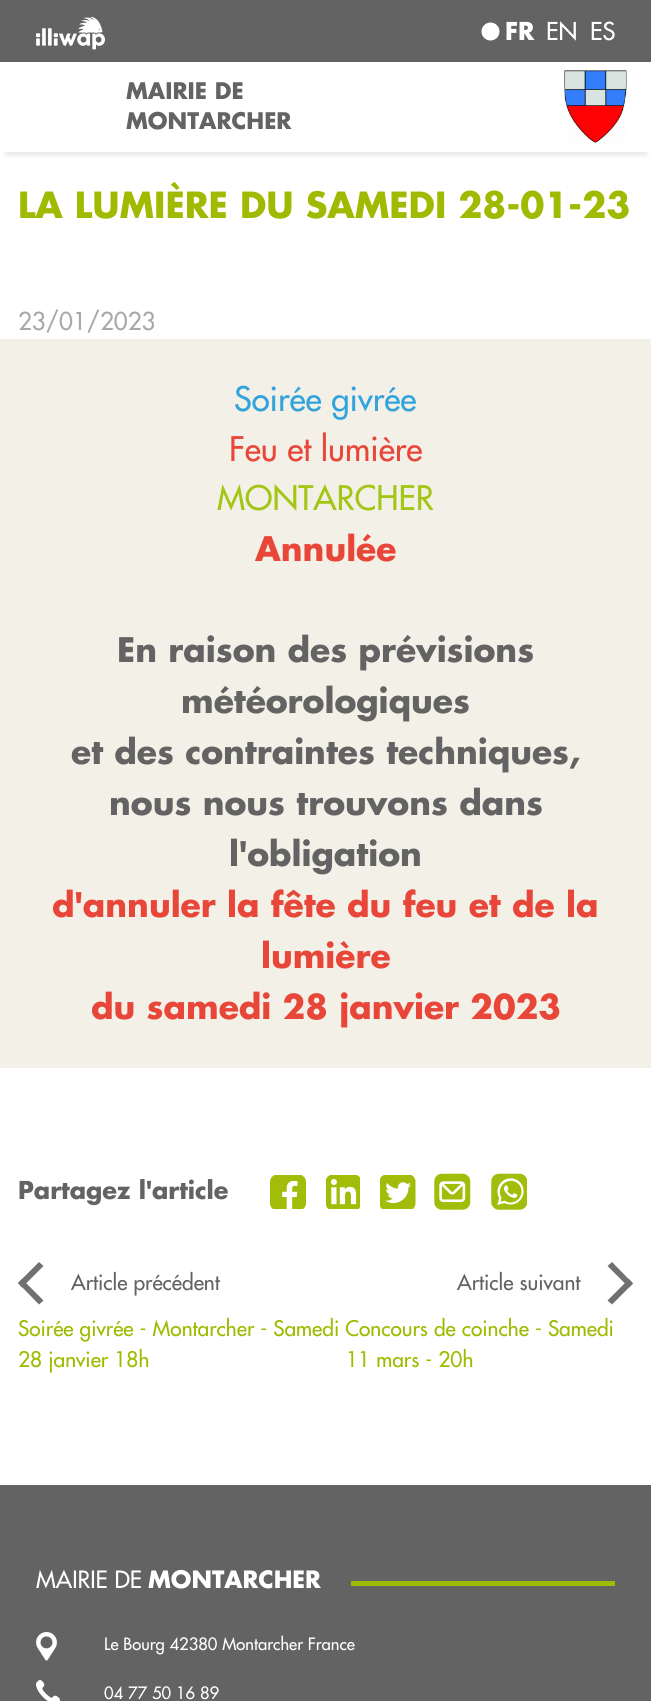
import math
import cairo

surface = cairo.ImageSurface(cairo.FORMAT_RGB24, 651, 1701)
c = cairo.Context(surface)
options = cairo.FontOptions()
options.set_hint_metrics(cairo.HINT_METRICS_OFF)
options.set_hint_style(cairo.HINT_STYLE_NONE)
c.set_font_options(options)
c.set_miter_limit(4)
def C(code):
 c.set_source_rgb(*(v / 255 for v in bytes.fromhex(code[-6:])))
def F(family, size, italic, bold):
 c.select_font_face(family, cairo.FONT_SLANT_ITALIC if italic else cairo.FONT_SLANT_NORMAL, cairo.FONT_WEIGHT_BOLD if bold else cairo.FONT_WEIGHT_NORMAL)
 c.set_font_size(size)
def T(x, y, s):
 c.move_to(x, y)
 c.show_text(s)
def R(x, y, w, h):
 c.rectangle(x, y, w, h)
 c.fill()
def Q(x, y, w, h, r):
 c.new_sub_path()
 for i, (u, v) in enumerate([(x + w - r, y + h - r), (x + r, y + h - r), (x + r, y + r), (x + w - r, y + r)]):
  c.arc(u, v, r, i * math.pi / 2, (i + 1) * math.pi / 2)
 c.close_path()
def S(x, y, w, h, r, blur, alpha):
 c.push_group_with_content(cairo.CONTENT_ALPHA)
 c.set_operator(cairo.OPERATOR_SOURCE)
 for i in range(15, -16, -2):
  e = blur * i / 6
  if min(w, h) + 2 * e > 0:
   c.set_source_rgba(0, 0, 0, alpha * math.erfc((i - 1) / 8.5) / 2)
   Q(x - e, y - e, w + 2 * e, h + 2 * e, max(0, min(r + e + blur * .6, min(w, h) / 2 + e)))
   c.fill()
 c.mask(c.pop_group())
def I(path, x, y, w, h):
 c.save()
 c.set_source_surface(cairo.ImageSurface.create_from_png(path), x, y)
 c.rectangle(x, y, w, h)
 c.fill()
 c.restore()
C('ffffff')
c.paint()
C('000000')
S(5,14,642,142,0,2,.08)
C('ffffff')
R(3,62,646,90)
C('646363')
R(0,0,651,62)
I('1.png',36,17,69,33)
C('ffffff')
c.arc(490.5,31.5,9,0,2 * math.pi)
c.fill()
F('Futura',24,0,1)
T(505,40,'FR')
F('Futura',24,0,0)
T(546,40,'EN')
T(590,40,'ES')
F('Futura',22.25,0,1)
C('646363')
T(126,99,'MAIRIE DE')
T(126,129,'MONTARCHER')
I('2.png',564,70,63,73)
F('Futura',35.1,0,1)
C('9fba00')
T(18,218,'LA LUMIÈRE DU SAMEDI 28-01-23')
F('Futura',24,0,0)
C('a8a8a8')
T(18,330,'23/01/2023')
C('f3f0e8')
R(0,339,651,729)
F('Futura',33,0,0)
C('31a4dd')
T(234,411,'Soirée givrée')
C('e9463a')
T(229,461,'Feu et lumière')
C('a3c614')
T(217,510,'MONTARCHER')
F('Futura',33,0,1)
C('e9463a')
T(255,561,'Annulée')
C('646363')
T(117,662,'En raison des prévisions')
T(181,713,'météorologiques')
T(71,764,'et des contraintes techniques,')
T(109,815,'nous nous trouvons dans')
T(229,866,'l\'obligation')
C('e9463a')
T(52,917,'d\'annuler la fête du feu et de la')
T(261,968,'lumière')
T(91,1019,'du samedi 28 janvier 2023')
F('Futura',24,0,1)
C('646363')
T(18,1199,'Partagez l\'article')
I('3.png',270,1175,36,34)
I('4.png',326,1175,34,34)
I('5.png',380,1175,36,34)
I('6.png',434,1173,37,37)
I('7.png',491,1173,36,37)
C('707070')
c.new_path()
c.move_to(39,1304.5)
c.line_to(18,1283)
c.line_to(22,1279)
c.line_to(43.5,1300.5)
c.close_path()
c.fill()
c.new_path()
c.move_to(18,1283)
c.line_to(39,1262)
c.line_to(43.5,1266)
c.line_to(22,1287.5)
c.close_path()
c.fill()
F('Futura',20.9,0,0)
C('646363')
T(71,1290,'Article précédent')
C('707070')
c.new_path()
c.move_to(612,1262)
c.line_to(633,1283.5)
c.line_to(629,1287.5)
c.line_to(607.5,1266)
c.close_path()
c.fill()
c.new_path()
c.move_to(633,1283.5)
c.line_to(612,1304.5)
c.line_to(607.5,1300.5)
c.line_to(629,1279)
c.close_path()
c.fill()
C('646363')
T(457,1290,'Article suivant')
C('9fba00')
T(18,1336,'Soirée givrée - Montarcher - Samedi Concours de coinche - Samedi')
T(18,1367,'28 janvier 18h')
T(346,1367,'11 mars - 20h')
C('646363')
R(0,1485,651,216)
C('9fba00')
R(351,1581,264,5)
F('Futura',23.25,0,0)
C('ffffff')
T(36,1588,'MAIRIE DE')
F('Futura',23.25,0,1)
T(148,1588,'MONTARCHER')
I('8.png',36,1632,21,29)
F('Futura',16.6,0,0)
T(104,1650,'Le Bourg 42380 Montarcher France')
I('9.png',36,1680,24,21)
T(104,1699,'04 77 50 16 89')
surface.write_to_png('o.png')
